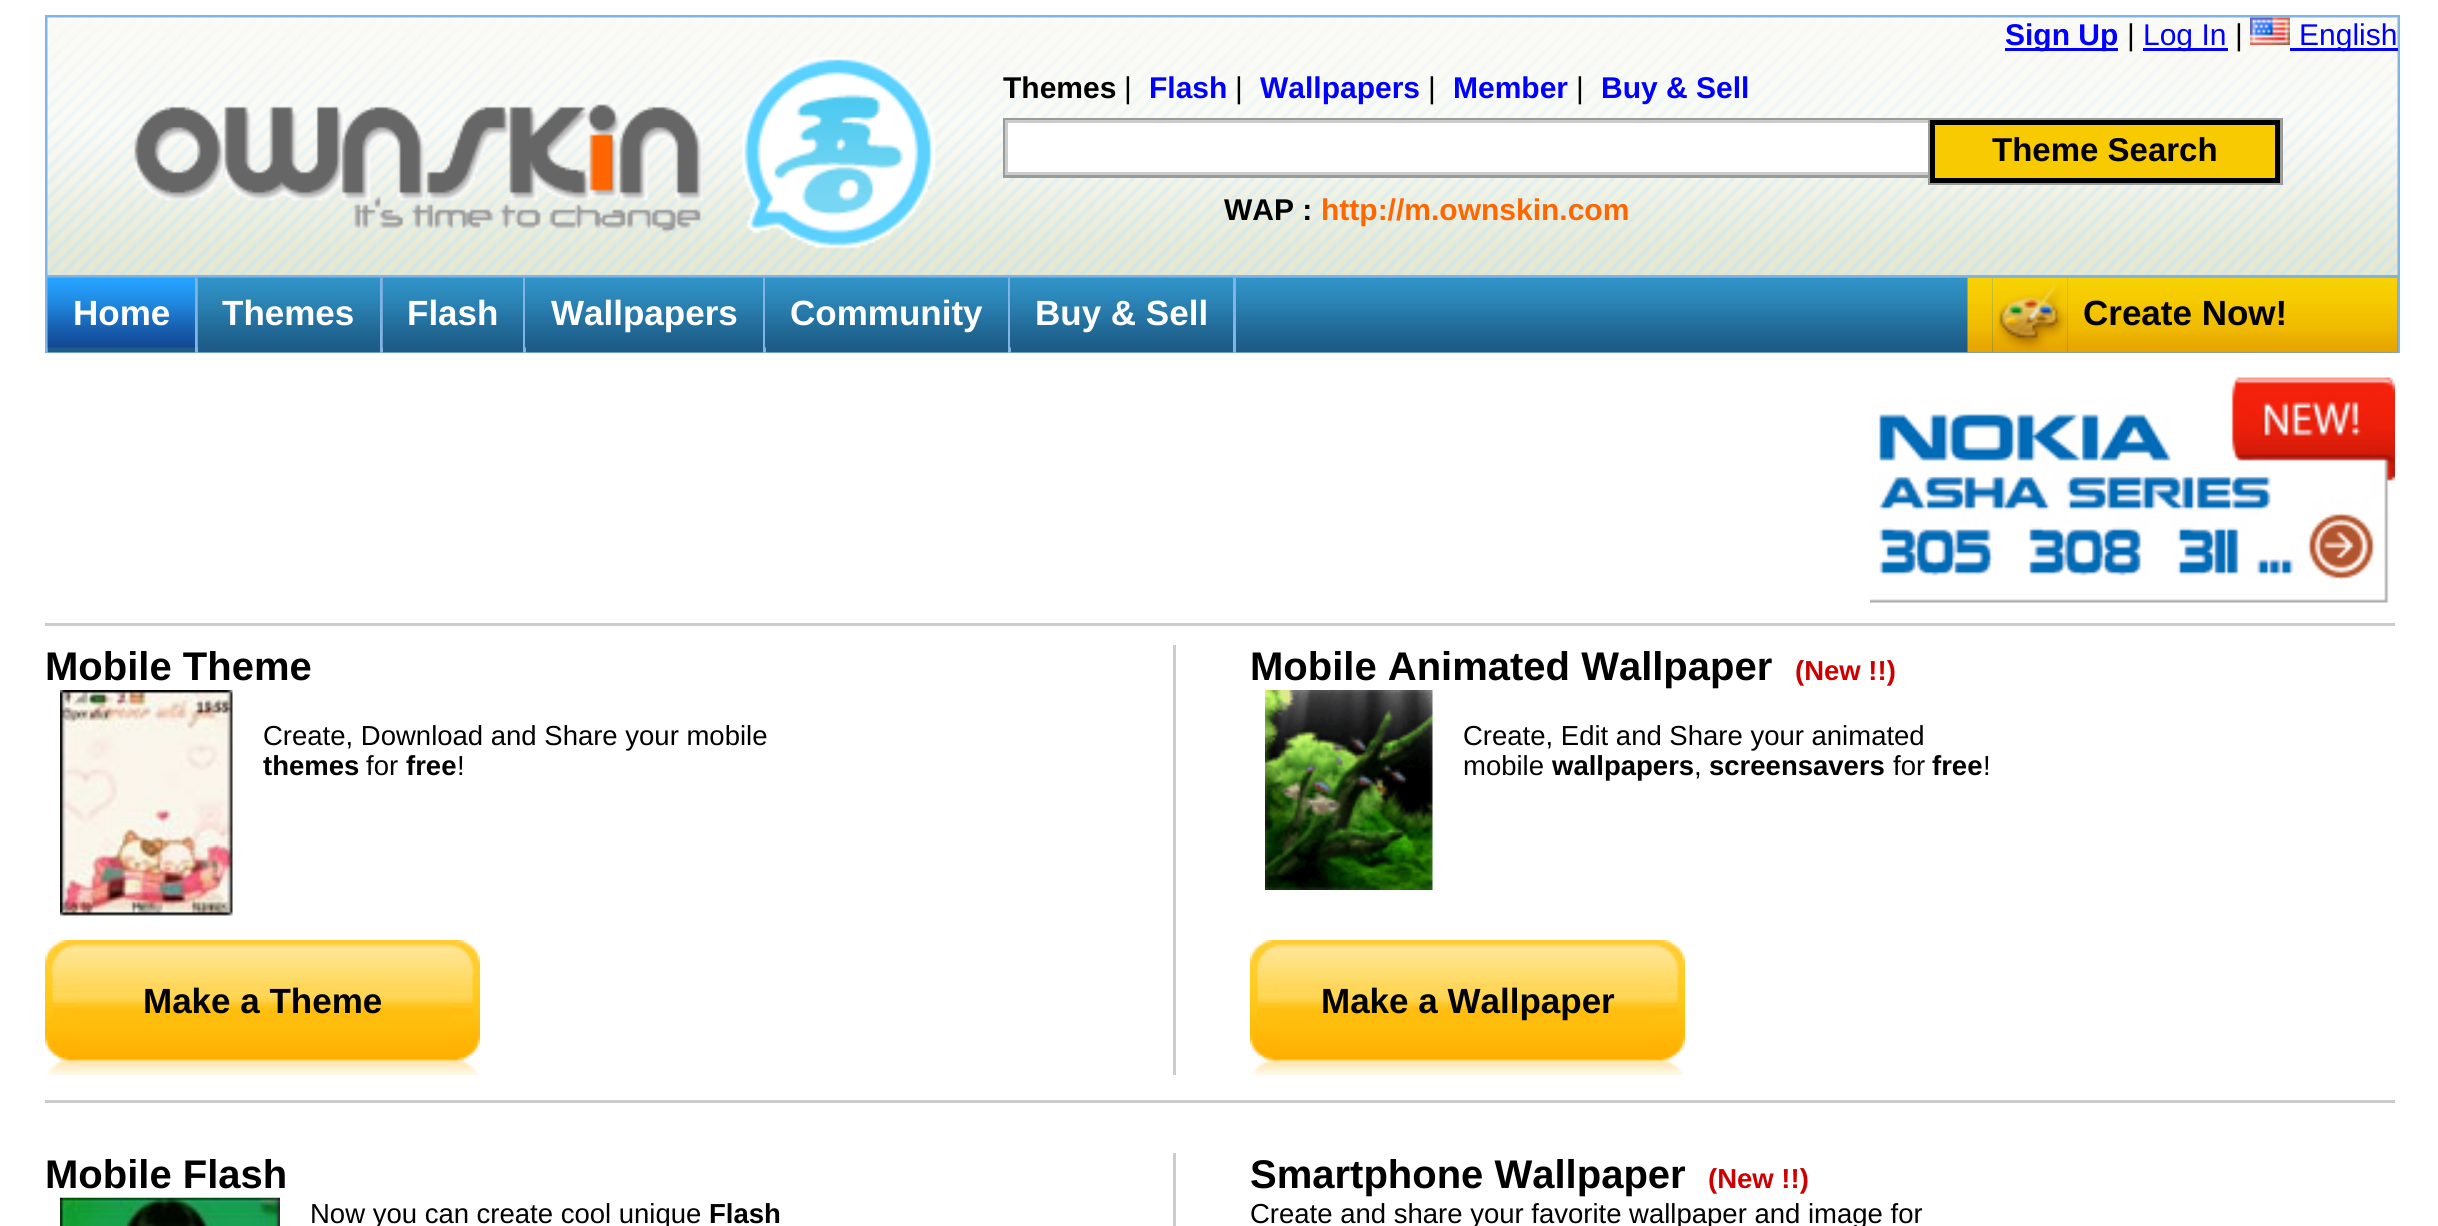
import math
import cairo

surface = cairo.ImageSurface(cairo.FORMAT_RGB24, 2438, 1226)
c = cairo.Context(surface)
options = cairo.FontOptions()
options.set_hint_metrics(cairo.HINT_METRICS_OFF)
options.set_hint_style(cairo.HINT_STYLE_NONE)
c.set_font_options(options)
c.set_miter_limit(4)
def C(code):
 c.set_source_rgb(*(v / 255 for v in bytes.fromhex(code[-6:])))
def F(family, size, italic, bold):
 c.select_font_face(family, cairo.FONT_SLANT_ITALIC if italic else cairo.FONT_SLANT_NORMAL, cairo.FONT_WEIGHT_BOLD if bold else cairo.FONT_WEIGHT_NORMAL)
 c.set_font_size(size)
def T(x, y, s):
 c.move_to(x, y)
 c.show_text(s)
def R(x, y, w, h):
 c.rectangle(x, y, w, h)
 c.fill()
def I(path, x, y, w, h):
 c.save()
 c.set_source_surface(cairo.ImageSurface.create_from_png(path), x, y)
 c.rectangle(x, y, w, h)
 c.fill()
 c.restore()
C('ffffff')
c.paint()
c.rectangle(46.5,16.5,2352,335)
C('81b3e5')
c.set_line_width(3)
c.stroke()
I('1.png',47,17,2351,258)
C('0000ff')
R(2005,48,113,3)
F('Liberation Sans',30,0,1)
T(2005,45,'Sign Up')
F('Liberation Sans',30,0,0)
C('000000')
T(2127,45,'|')
C('0000ff')
R(2143,48,85,3)
T(2143,45,'Log In')
C('000000')
T(2235,45,'|')
I('2.png',2250,17,40,28)
C('0000ff')
R(2290,48,108,3)
T(2299,45,'English')
I('3.png',134,57,802,192)
F('Liberation Sans',30,0,1)
C('000000')
T(1003,98,'Themes')
F('Liberation Sans',30,0,0)
T(1124,98,'|')
F('Liberation Sans',30,0,1)
C('0000ff')
T(1149,98,'Flash')
F('Liberation Sans',30,0,0)
C('000000')
T(1235,98,'|')
F('Liberation Sans',30,0,1)
C('0000ff')
T(1260,98,'Wallpapers')
F('Liberation Sans',30,0,0)
C('000000')
T(1428,98,'|')
F('Liberation Sans',30,0,1)
C('0000ff')
T(1453,98,'Member')
F('Liberation Sans',30,0,0)
C('000000')
T(1576,98,'|')
F('Liberation Sans',30,0,1)
C('0000ff')
T(1601,98,'Buy & Sell')
c.rectangle(1004.5,119.5,922,57)
C('999b9a')
c.stroke()
C('ffffff')
R(1008,123,920,49)
c.rectangle(1006.5,121.5,930,52)
C('cccccc')
c.stroke()
c.rectangle(1929.5,119.5,352,64)
C('999b9a')
c.stroke()
C('f8ca02')
c.rectangle(1932.5,122.5,345,58)
c.fill_preserve()
C('000000')
c.set_line_width(5)
c.stroke()
F('Liberation Sans',33,0,1)
T(1992,161,'Theme Search')
F('Liberation Sans',30,0,1)
T(1224,220,'WAP :')
C('ff6600')
T(1321,220,'http://m.ownskin.com')
C('81b3e5')
R(48,275,2350,3)
I('4.png',47,277,2351,76)
R(195,278,3,75)
I('5.png',47,277,148,71)
F('Liberation Sans',35,0,1)
C('ffffff')
T(73,325,'Home')
C('81b3e5')
R(380,278,3,75)
I('6.png',197,277,183,71)
C('ffffff')
T(222,325,'Themes')
C('81b3e5')
R(523,278,3,75)
I('7.png',382,277,140,71)
C('ffffff')
T(407,325,'Flash')
C('81b3e5')
R(763,278,3,75)
I('8.png',525,277,237,71)
C('ffffff')
T(551,325,'Wallpapers')
C('81b3e5')
R(1008,278,3,75)
I('9.png',765,277,242,71)
C('ffffff')
T(790,325,'Community')
C('81b3e5')
R(1233,278,3,75)
I('10.png',1010,277,222,71)
C('ffffff')
T(1035,325,'Buy & Sell')
I('13.png',2067,277,331,76)
I('12.png',1992,277,76,76)
I('11.png',1967,277,26,76)
C('000000')
T(2083,325,'Create Now!')
C('cccccc')
R(45,623,2350,3)
I('14.png',1870,377,525,226)
R(45,1100,2350,3)
R(1173,645,3,430)
F('Liberation Sans',40,0,1)
C('000000')
T(45,680,'Mobile Theme')
I('15.png',60,690,173,228)
F('Liberation Sans',27.5,0,0)
T(263,745,'Create, Download and Share your mobile')
F('Liberation Sans',27.5,0,1)
T(263,775,'themes')
F('Liberation Sans',27.5,0,0)
T(366,775,'for')
F('Liberation Sans',27.5,0,1)
T(406,775,'free')
F('Liberation Sans',27.5,0,0)
T(457,775,'!')
I('16.png',45,940,30,135)
I('17.png',75,940,375,135)
F('Liberation Sans',35,0,1)
T(143,1013,'Make a Theme')
I('18.png',450,940,30,135)
F('Liberation Sans',40,0,1)
T(1250,680,'Mobile Animated Wallpaper')
F('Liberation Sans',27.5,0,1)
C('cc0000')
T(1795,680,'(New !!)')
I('19.png',1265,690,168,200)
F('Liberation Sans',27.5,0,0)
C('000000')
T(1463,745,'Create, Edit and Share your animated')
T(1463,775,'mobile')
F('Liberation Sans',27.5,0,1)
T(1552,775,'wallpapers')
F('Liberation Sans',27.5,0,0)
T(1694,775,',')
F('Liberation Sans',27.5,0,1)
T(1709,775,'screensavers')
F('Liberation Sans',27.5,0,0)
T(1893,775,'for')
F('Liberation Sans',27.5,0,1)
T(1932,775,'free')
F('Liberation Sans',27.5,0,0)
T(1983,775,'!')
I('20.png',1250,940,30,135)
I('21.png',1280,940,375,135)
F('Liberation Sans',35,0,1)
T(1321,1013,'Make a Wallpaper')
I('22.png',1655,940,30,135)
C('cccccc')
R(1173,1153,3,73)
F('Liberation Sans',40,0,1)
C('000000')
T(45,1188,'Mobile Flash')
I('23.png',60,1197,220,29)
F('Liberation Sans',27.5,0,0)
T(310,1223,'Now you can create cool unique')
F('Liberation Sans',27.5,0,1)
T(709,1223,'Flash')
F('Liberation Sans',40,0,1)
T(1250,1188,'Smartphone Wallpaper')
F('Liberation Sans',27.5,0,1)
C('cc0000')
T(1708,1188,'(New !!)')
F('Liberation Sans',27.5,0,0)
C('000000')
T(1250,1223,'Create and share your favorite wallpaper and image for')
surface.write_to_png('o.png')
